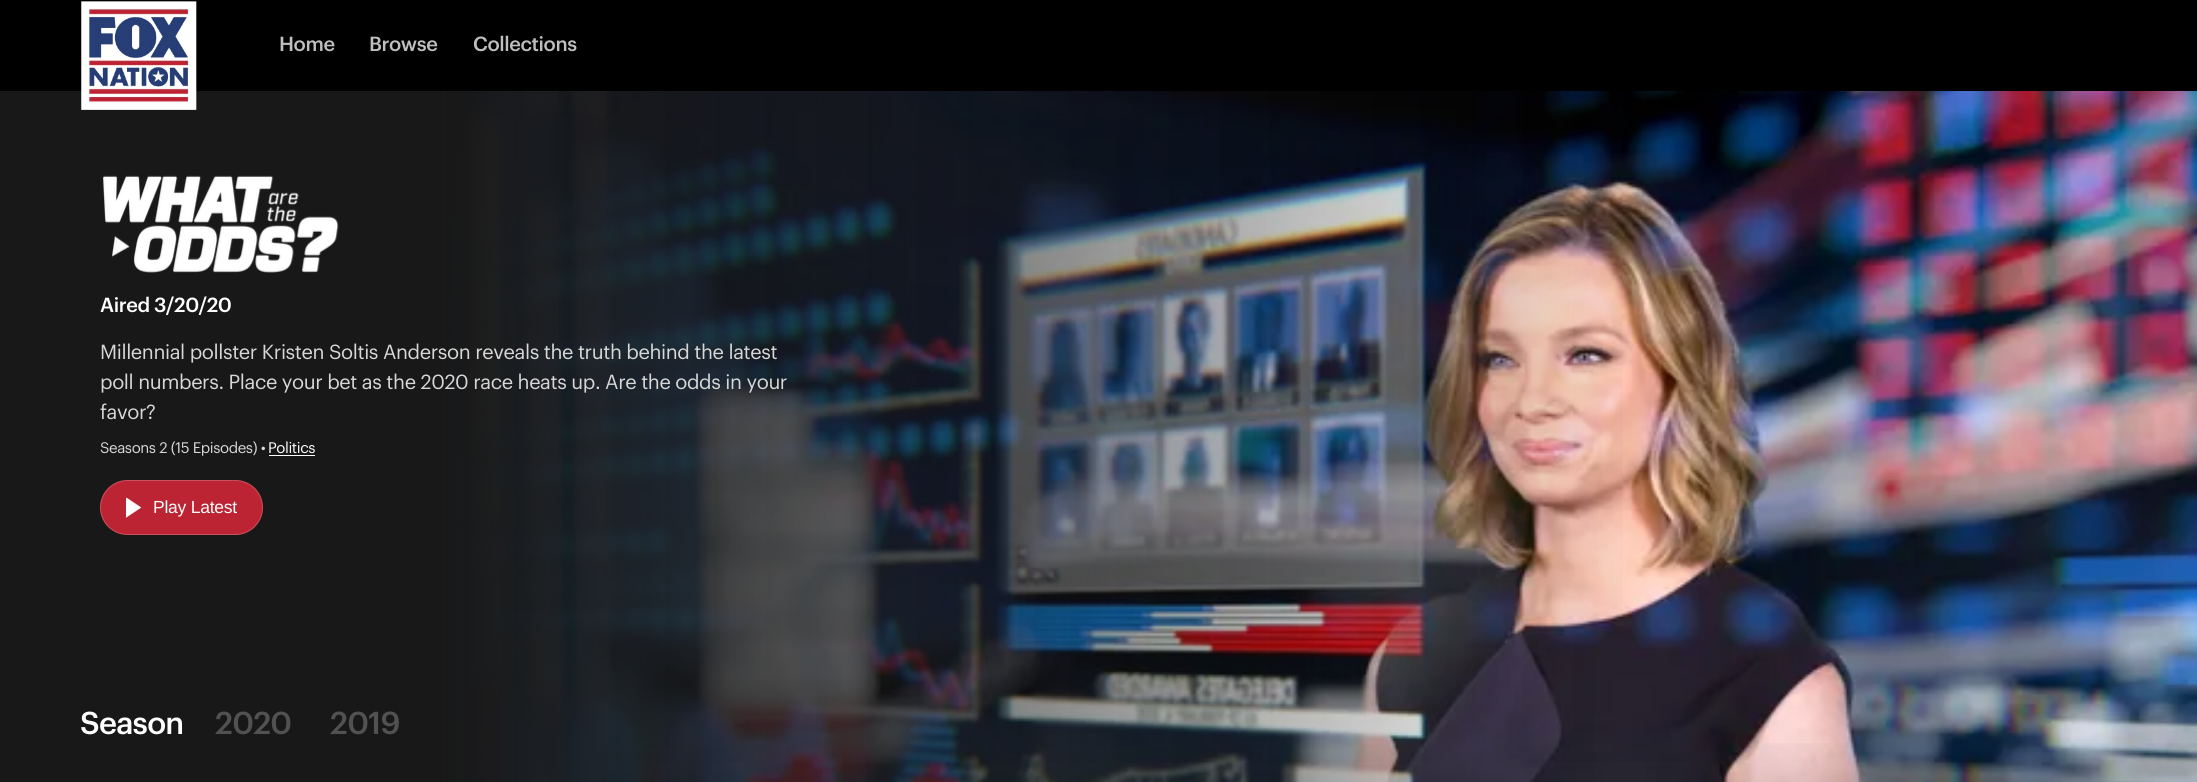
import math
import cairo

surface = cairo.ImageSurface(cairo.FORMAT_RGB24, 2197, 782)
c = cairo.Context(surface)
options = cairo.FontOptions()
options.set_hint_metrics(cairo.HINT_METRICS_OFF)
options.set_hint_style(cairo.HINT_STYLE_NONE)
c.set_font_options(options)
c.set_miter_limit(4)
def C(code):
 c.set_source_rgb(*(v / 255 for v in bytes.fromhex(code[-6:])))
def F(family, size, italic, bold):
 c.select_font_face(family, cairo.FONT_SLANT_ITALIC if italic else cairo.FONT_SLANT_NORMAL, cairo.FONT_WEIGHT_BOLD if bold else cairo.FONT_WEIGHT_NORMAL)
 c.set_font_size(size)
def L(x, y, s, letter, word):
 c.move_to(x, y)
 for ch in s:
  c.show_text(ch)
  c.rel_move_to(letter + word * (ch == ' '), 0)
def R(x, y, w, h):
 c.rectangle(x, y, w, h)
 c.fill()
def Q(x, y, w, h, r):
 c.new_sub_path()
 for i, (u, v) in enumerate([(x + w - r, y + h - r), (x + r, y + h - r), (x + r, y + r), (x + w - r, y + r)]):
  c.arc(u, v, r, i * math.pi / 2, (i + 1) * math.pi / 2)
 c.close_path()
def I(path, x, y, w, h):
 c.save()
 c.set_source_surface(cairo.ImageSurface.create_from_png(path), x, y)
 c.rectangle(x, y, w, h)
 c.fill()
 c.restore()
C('ffffff')
c.paint()
C('000000')
R(0,0,2197,91)
I('2.png',446,91,1751,691)
gradient = cairo.LinearGradient(0,618,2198,617)
gradient.add_color_stop_rgba(.2,0.094,0.094,0.094,1)
gradient.add_color_stop_rgba(.75,0.094,0.094,0.094,0)
c.set_source(gradient)
R(0,91,1623,691)
I('1.png',81,1,116,109)
F('Graphik Medium',20,0,0)
C('bfbfbf')
L(279,51,'Home',-.4,0)
L(369,51,'Browse',-.4,0)
L(473,51,'Collections',-.4,0)
gradient = cairo.LinearGradient(1099,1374,1099,91)
gradient.add_color_stop_rgba(.13,0.094,0.094,0.094,1)
gradient.add_color_stop_rgba(.5,0.094,0.094,0.094,0)
c.set_source(gradient)
R(601,743,1596,39)
I('3.png',103,175,236,98)
C('ffffff')
L(100,312,'Aired 3/20/20',-.4,0)
F('Graphik',20,0,0)
C('d8d8d8')
L(100,359,'Millennial pollster Kristen Soltis Anderson reveals the truth behind the latest',-.4,0)
L(100,389,'poll numbers. Place your bet as the 2020 race heats up. Are the odds in your',-.4,0)
L(100,419,'favor?',-.4,0)
F('Graphik',15,0,0)
L(100,453,'Seasons 2 (15 Episodes) •',-.4,0)
C('ffffff')
L(268,453,'Politics',-.4,0)
R(269,455,46,1)
C('bc2433')
Q(100,480,163,55,27.5)
c.fill()
Q(100.5,480.5,162,54,27)
c.set_source_rgba(1,1,1,0.2)
c.set_line_width(1)
c.stroke()
C('ffffff')
c.set_fill_rule(cairo.FILL_RULE_EVEN_ODD)
c.new_path()
c.move_to(126,497.5)
c.line_to(126,517.5)
c.line_to(141,507.5)
c.close_path()
c.fill()
c.save()
c.set_fill_rule(cairo.FILL_RULE_WINDING)
c.rectangle(126,498,20,20)
c.clip()
c.new_path()
c.move_to(126,497.5)
c.line_to(126,517.5)
c.line_to(141,507.5)
c.close_path()
c.set_line_width(.3)
c.stroke()
c.restore()
F('Liberation Sans',17.5,0,0)
L(153,513,'Play Latest',-.25,0)
F('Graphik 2 Medium',31,0,0)
L(80,734,'Season',-.75,0)
C('515151')
L(215,734,'2020',-.75,0)
L(330,734,'2019',-.75,0)
surface.write_to_png('o.png')
